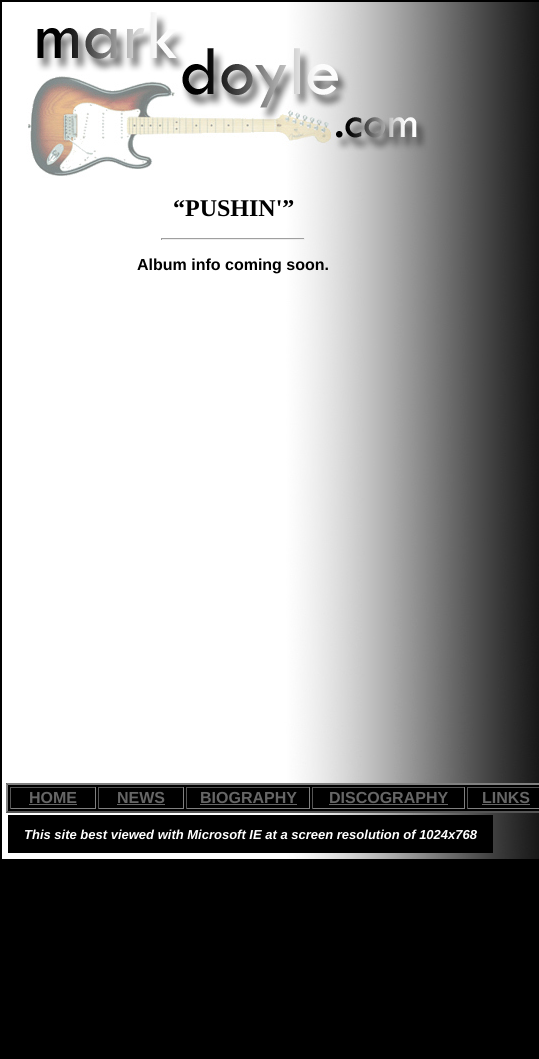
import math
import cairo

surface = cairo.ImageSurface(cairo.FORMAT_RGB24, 539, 1059)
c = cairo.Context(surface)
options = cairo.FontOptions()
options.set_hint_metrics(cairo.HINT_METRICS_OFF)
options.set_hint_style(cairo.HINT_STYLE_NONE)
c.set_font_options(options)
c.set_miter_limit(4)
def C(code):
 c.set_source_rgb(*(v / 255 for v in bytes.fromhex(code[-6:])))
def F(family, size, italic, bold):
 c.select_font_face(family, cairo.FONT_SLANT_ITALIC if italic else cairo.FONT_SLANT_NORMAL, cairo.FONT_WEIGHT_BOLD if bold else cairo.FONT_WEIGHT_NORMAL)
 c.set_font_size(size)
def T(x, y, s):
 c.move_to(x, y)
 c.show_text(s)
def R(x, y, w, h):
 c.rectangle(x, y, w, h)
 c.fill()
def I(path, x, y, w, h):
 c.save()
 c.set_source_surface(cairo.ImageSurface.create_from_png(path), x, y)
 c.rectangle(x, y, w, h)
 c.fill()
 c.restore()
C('000000')
c.paint()
I('1.png',2,2,537,857)
F('Liberation Serif',24,0,1)
C('000000')
T(173,216,'“PUSHIN\'”')
C('9f9f9f')
R(161,238,144,1)
C('eeeeee')
R(304,238,1,2)
R(161,239,144,1)
C('9f9f9f')
R(161,238,1,2)
F('Liberation Sans',16,0,1)
C('000000')
T(137,270,'Album info coming soon.')
R(6,783,533,30)
C('808080')
c.new_path()
c.move_to(6,783)
c.line_to(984,783)
c.line_to(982,785)
c.line_to(8,785)
c.close_path()
c.fill()
C('555555')
c.new_path()
c.move_to(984,813)
c.line_to(6,813)
c.line_to(8,811)
c.line_to(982,811)
c.close_path()
c.fill()
C('808080')
c.new_path()
c.move_to(6,813)
c.line_to(6,783)
c.line_to(8,785)
c.line_to(8,811)
c.close_path()
c.fill()
C('555555')
R(10,787,86,1)
C('808080')
R(95,787,1,22)
R(10,808,86,1)
C('555555')
R(10,787,1,22)
C('666666')
T(29,803,'HOME')
R(29,804,48,1)
C('555555')
R(98,787,86,1)
C('808080')
R(183,787,1,22)
R(98,808,86,1)
C('555555')
R(98,787,1,22)
C('666666')
T(117,803,'NEWS')
R(117,804,48,1)
C('555555')
R(186,787,124,1)
C('808080')
R(309,787,1,22)
R(186,808,124,1)
C('555555')
R(186,787,1,22)
C('666666')
T(200,803,'BIOGRAPHY')
R(200,804,97,1)
C('555555')
R(312,787,153,1)
C('808080')
R(464,787,1,22)
R(312,808,153,1)
C('555555')
R(312,787,1,22)
C('666666')
T(329,803,'DISCOGRAPHY')
R(329,804,119,1)
C('555555')
R(467,787,72,1)
C('808080')
R(467,808,72,1)
C('555555')
R(467,787,1,22)
C('666666')
T(482,803,'LINKS')
R(482,804,48,1)
C('000000')
R(8,815,485,38)
F('Liberation Sans',13,1,1)
C('ffffff')
T(24,839,'This site best viewed with Microsoft IE at a screen resolution of 1024x768')
surface.write_to_png('o.png')
